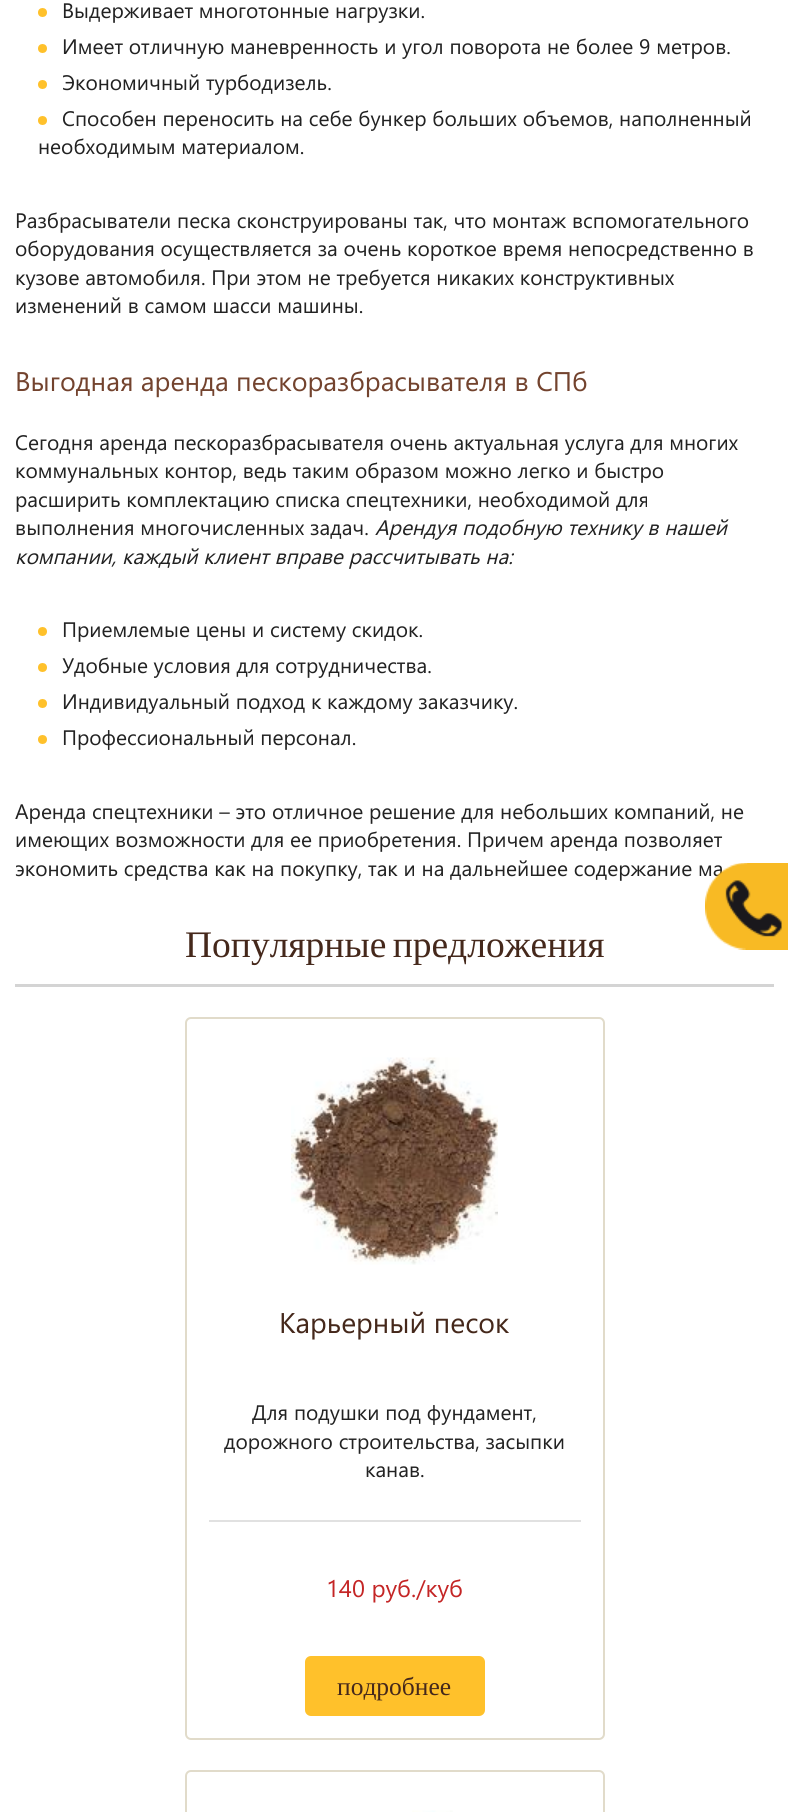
import math
import cairo

surface = cairo.ImageSurface(cairo.FORMAT_RGB24, 788, 1812)
c = cairo.Context(surface)
options = cairo.FontOptions()
options.set_hint_metrics(cairo.HINT_METRICS_OFF)
options.set_hint_style(cairo.HINT_STYLE_NONE)
c.set_font_options(options)
c.set_miter_limit(4)
def C(code):
 c.set_source_rgb(*(v / 255 for v in bytes.fromhex(code[-6:])))
def F(family, size, italic, bold):
 c.select_font_face(family, cairo.FONT_SLANT_ITALIC if italic else cairo.FONT_SLANT_NORMAL, cairo.FONT_WEIGHT_BOLD if bold else cairo.FONT_WEIGHT_NORMAL)
 c.set_font_size(size)
def T(x, y, s):
 c.move_to(x, y)
 c.show_text(s)
def L(x, y, s, letter, word):
 c.move_to(x, y)
 for ch in s:
  c.show_text(ch)
  c.rel_move_to(letter + word * (ch == ' '), 0)
def R(x, y, w, h):
 c.rectangle(x, y, w, h)
 c.fill()
def Q(x, y, w, h, r):
 c.new_sub_path()
 for i, (u, v) in enumerate([(x + w - r, y + h - r), (x + r, y + h - r), (x + r, y + r), (x + w - r, y + r)]):
  c.arc(u, v, r, i * math.pi / 2, (i + 1) * math.pi / 2)
 c.close_path()
def I(path, x, y, w, h):
 c.save()
 c.set_source_surface(cairo.ImageSurface.create_from_png(path), x, y)
 c.rectangle(x, y, w, h)
 c.fill()
 c.restore()
C('ffffff')
c.paint()
C('ffc12b')
c.arc(42.5,12.5,4.5,0,2 * math.pi)
c.fill()
F('Segoe UI',21,0,0)
C('222222')
T(62,18,'Выдерживает многотонные нагрузки.')
C('ffc12b')
c.new_path()
c.arc(42.5,48.5,4.5,0,2 * math.pi)
c.fill()
C('222222')
T(62,54,'Имеет отличную маневренность и угол поворота не более 9 метров.')
C('ffc12b')
c.new_path()
c.arc(42.5,84.5,4.5,0,2 * math.pi)
c.fill()
C('222222')
T(62,90,'Экономичный турбодизель.')
C('ffc12b')
c.new_path()
c.arc(42.5,120.5,4.5,0,2 * math.pi)
c.fill()
C('222222')
T(62,126,'Способен переносить на себе бункер больших объемов, наполненный')
T(38,154,'необходимым материалом.')
T(15,228,'Разбрасыватели песка сконструированы так, что монтаж вспомогательного')
T(15,256,'оборудования осуществляется за очень короткое время непосредственно в')
T(15,285,'кузове автомобиля. При этом не требуется никаких конструктивных')
T(15,313,'изменений в самом шасси машины.')
F('Segoe UI',27,0,0)
C('73432e')
T(15,391,'Выгодная аренда пескоразбрасывателя в СПб')
F('Segoe UI',21,0,0)
C('222222')
T(15,450,'Сегодня аренда пескоразбрасывателя очень актуальная услуга для многих')
T(15,478,'коммунальных контор, ведь таким образом можно легко и быстро')
T(15,507,'расширить комплектацию списка спецтехники, необходимой для')
T(15,535,'выполнения многочисленных задач.')
F('Segoe UI',21,1,0)
T(375,535,'Арендуя подобную технику в нашей')
T(15,564,'компании, каждый клиент вправе рассчитывать на:')
C('ffc12b')
c.new_path()
c.arc(42.5,631.5,4.5,0,2 * math.pi)
c.fill()
F('Segoe UI',21,0,0)
C('222222')
T(62,637,'Приемлемые цены и систему скидок.')
C('ffc12b')
c.new_path()
c.arc(42.5,667.5,4.5,0,2 * math.pi)
c.fill()
C('222222')
T(62,673,'Удобные условия для сотрудничества.')
C('ffc12b')
c.new_path()
c.arc(42.5,703.5,4.5,0,2 * math.pi)
c.fill()
C('222222')
T(62,709,'Индивидуальный подход к каждому заказчику.')
C('ffc12b')
c.new_path()
c.arc(42.5,739.5,4.5,0,2 * math.pi)
c.fill()
C('222222')
T(62,745,'Профессиональный персонал.')
T(15,819,'Аренда спецтехники – это отличное решение для небольших компаний, не')
T(15,847,'имеющих возможности для ее приобретения. Причем аренда позволяет')
T(15,876,'экономить средства как на покупку, так и на дальнейшее содержание ма')
C('d4d4d4')
R(15,984,759,3)
F('Liberation Serif',37.5,0,0)
C('45281b')
L(185,957,'Популярные предложения',0,-3)
Q(186,1018,418,721,5)
C('e1dbca')
c.stroke()
I('1.png',291,1057,207,208)
F('Segoe UI',28.5,0,0)
C('45281b')
T(279,1333,'Карьерный песок')
C('e1e1e1')
R(209,1520,372,2)
F('Segoe UI',21,0,0)
C('222222')
T(252,1420,'Для подушки под фундамент,')
T(224,1449,'дорожного строительства, засыпки')
T(365,1477,'канав.')
F('Segoe UI',24,0,0)
C('c42525')
T(326,1597,'140 руб./куб')
C('ffc12b')
Q(305,1656,180,60,6)
c.fill()
F('Liberation Serif',25.5,0,0)
C('45281b')
T(337,1695,'подробнее')
Q(186,1771,418,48,5)
C('e1dbca')
c.stroke()
I('2.png',412,1810,41,2)
I('3.png',705,863,83,87)
surface.write_to_png('o.png')
